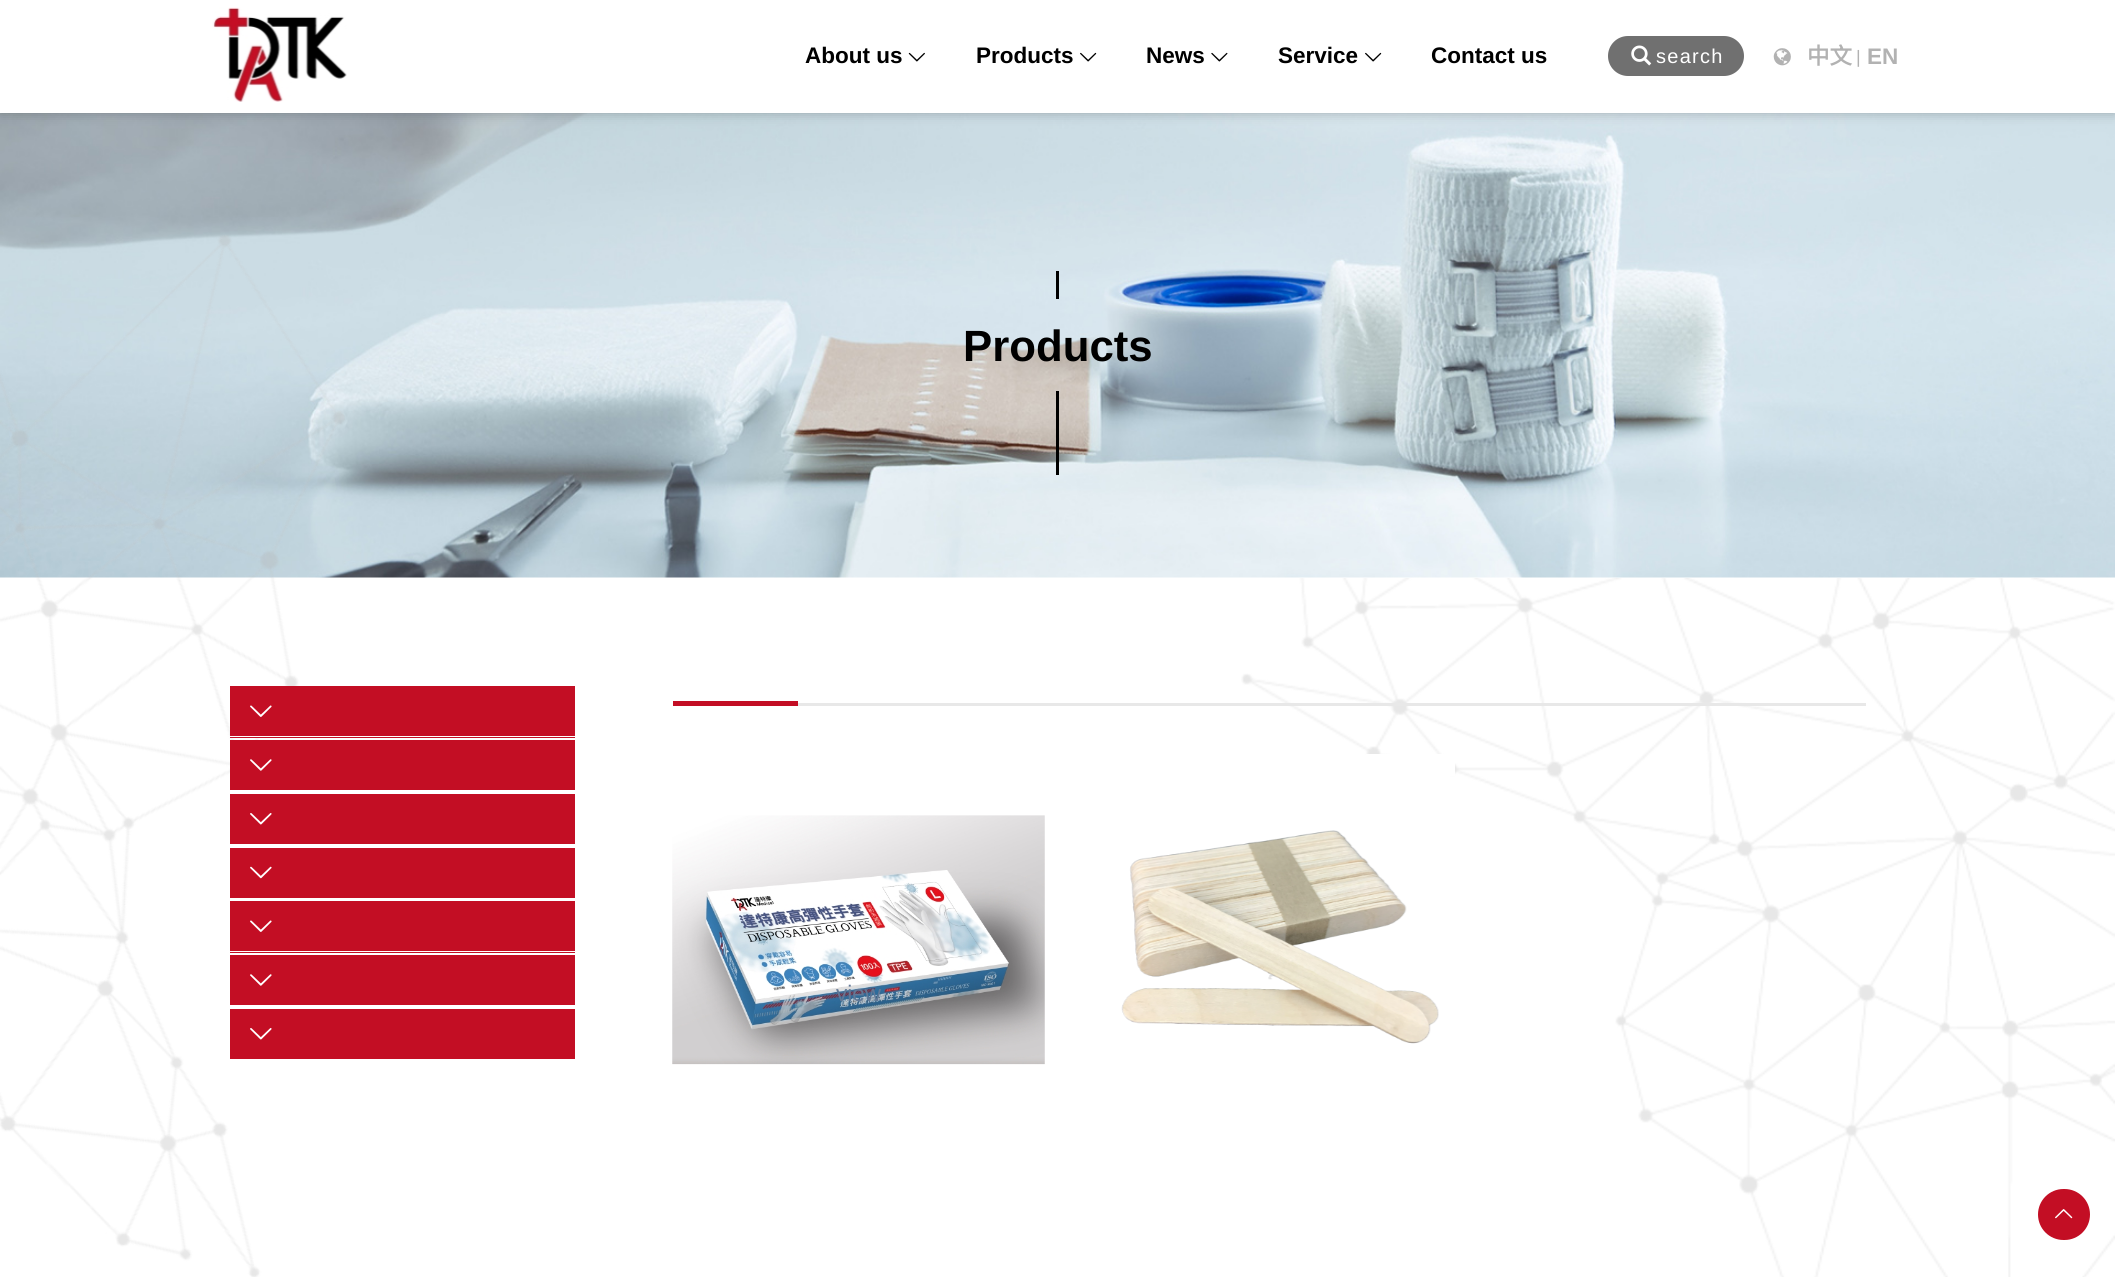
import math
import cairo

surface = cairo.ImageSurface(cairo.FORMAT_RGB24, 2115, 1277)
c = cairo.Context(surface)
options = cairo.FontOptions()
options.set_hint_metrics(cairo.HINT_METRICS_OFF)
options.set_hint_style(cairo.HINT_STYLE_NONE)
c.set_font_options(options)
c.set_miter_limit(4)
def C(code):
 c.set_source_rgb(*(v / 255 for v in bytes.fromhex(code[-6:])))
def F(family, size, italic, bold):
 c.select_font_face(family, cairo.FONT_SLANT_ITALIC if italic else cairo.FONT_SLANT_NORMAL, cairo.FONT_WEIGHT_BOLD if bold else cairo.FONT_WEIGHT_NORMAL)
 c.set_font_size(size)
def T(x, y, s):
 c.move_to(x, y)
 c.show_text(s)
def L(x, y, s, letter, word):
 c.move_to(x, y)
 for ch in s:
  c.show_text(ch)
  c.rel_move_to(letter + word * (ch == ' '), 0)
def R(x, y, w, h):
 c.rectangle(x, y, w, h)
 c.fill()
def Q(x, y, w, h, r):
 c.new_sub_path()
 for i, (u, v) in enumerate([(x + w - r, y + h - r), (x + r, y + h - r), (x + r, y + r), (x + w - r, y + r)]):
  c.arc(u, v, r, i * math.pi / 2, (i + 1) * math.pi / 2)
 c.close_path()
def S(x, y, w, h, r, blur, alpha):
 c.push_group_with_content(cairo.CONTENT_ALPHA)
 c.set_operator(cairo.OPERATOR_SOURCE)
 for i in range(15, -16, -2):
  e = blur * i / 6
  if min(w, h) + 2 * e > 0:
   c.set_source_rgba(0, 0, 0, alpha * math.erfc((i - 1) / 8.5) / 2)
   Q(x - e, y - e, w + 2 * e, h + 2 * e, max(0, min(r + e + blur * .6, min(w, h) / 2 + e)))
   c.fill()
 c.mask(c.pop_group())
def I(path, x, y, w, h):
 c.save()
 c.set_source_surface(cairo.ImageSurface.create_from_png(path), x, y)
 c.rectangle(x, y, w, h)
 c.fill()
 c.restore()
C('ffffff')
c.paint()
I('7.png',0,113,2115,465)
C('000000')
S(0,0,2115,113,0,6,.25)
C('ffffff')
R(0,0,2115,113)
I('1.png',212,7,135,95)
F('Liberation Sans',22.5,0,1)
C('000000')
T(805,63,'About us')
I('2.png',908,52,17,10)
T(976,63,'Products')
I('3.png',1080,52,17,10)
T(1146,63,'News')
I('4.png',1211,52,17,10)
T(1278,63,'Service')
I('3.png',1365,52,17,10)
T(1431,63,'Contact us')
C('707070')
Q(1608,36,136,40,20)
c.fill()
I('5.png',1631,45,21,21)
F('Liberation Sans',20,0,0)
C('ffffff')
L(1656,63,'search',1.25,0)
I('6.png',1773,48,18,18)
F('Noto Sans CJK TC',22.5,0,1)
C('b2b2b2')
T(1807,64,'中文')
F('Liberation Sans',18,0,0)
T(1856,63,'|')
F('Liberation Sans',22.5,0,1)
T(1867,64,'EN')
C('000000')
R(1056,271,3,28)
F('Liberation Sans',43.75,0,1)
T(963,361,'Products')
R(1056,391,3,84)
I('8.png',0,235,345,1042)
C('c30e24')
R(230,686,345,52)
C('ffffff')
R(230,736,345,1)
I('9.png',250,705,22,12)
C('c30e24')
R(230,740,345,50)
I('10.png',250,759,22,12)
R(230,794,345,50)
I('11.png',250,813,22,12)
R(230,848,345,50)
I('12.png',250,866,22,13)
R(230,901,345,52)
C('ffffff')
R(230,951,345,1)
I('9.png',250,920,22,12)
C('c30e24')
R(230,955,345,50)
I('10.png',250,974,22,12)
R(230,1009,345,50)
I('11.png',250,1028,22,12)
I('15.png',1241,578,874,699)
C('e8e8e8')
R(798,703,1068,3)
C('c30e24')
R(673,701,125,5)
I('13.png',672,815,373,250)
F('Liberation Sans',22.5,0,0)
C('627896')
T(836,1001,'view')
C('ffffff')
R(1366,754,89,22)
I('14.png',1121,830,318,214)
C('c30e24')
Q(2038,1189,52,51,25.5)
c.fill()
I('16.png',2055,1209,18,10)
surface.write_to_png('o.png')
